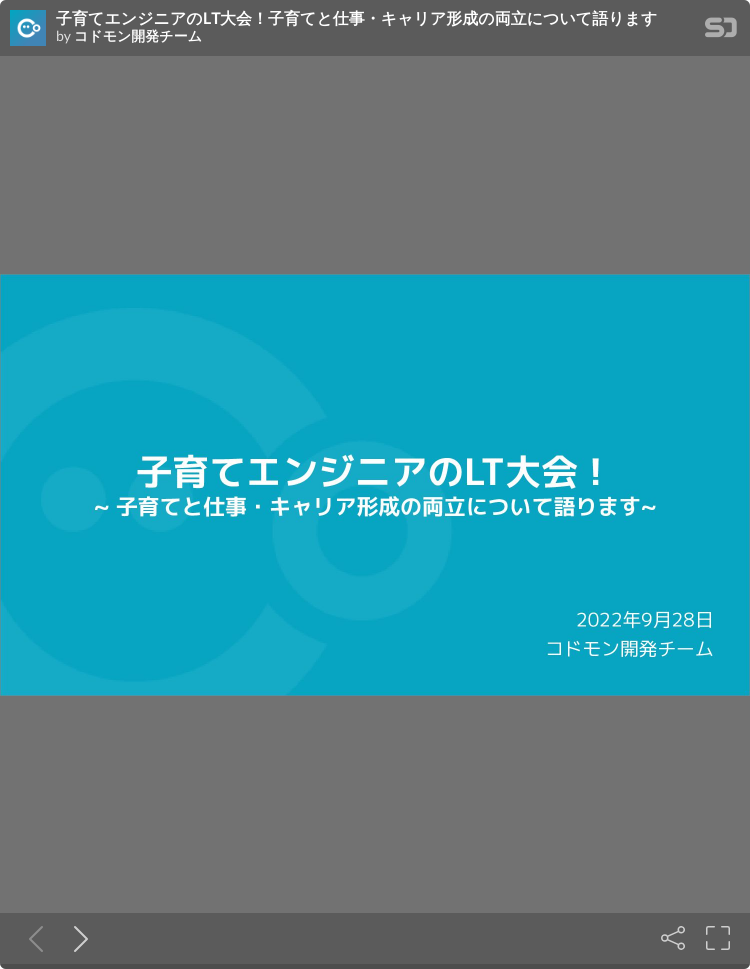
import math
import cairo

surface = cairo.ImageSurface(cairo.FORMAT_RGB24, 750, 969)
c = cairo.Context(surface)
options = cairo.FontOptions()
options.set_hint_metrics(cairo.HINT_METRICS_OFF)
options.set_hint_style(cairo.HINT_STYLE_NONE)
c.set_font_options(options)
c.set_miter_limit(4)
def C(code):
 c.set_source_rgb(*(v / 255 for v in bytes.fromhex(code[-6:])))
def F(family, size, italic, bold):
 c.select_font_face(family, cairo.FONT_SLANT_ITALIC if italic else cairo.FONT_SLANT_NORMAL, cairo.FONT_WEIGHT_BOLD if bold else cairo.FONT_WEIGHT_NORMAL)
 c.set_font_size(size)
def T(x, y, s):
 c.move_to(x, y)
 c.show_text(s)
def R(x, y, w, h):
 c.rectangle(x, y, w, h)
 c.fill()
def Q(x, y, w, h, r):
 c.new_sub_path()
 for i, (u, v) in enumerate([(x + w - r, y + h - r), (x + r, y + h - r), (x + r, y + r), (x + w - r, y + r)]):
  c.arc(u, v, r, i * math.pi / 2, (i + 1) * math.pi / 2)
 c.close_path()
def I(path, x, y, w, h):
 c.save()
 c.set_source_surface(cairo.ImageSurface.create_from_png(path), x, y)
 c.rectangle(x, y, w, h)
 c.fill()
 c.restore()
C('ffffff')
c.paint()
C('727272')
Q(0,0,750,969,6)
c.fill()
I('1.png',0,274,750,422)
c.set_source_rgba(0,0,0,0.2)
c.new_path()
c.move_to(6,0)
c.line_to(744,0)
c.curve_to(747.5,0,750,2.5,750,6)
c.line_to(750,56)
c.line_to(0,56)
c.line_to(0,6)
c.curve_to(0,2.5,2.5,0,6,0)
c.close_path()
c.fill()
I('2.png',10,10,36,36)
F('WenQuanYi Zen Hei',16,0,1)
C('ffffff')
T(56,24,'子育てエンジニアの')
F('Lato',16,0,1)
T(203,24,'LT')
F('WenQuanYi Zen Hei',16,0,1)
T(220,24,'大会！子育てと仕事・キャリア形成の両立について語ります')
I('3.png',705,17,32,21)
F('Lato',14,0,0)
C('dedede')
T(56,41,'by')
F('WenQuanYi Zen Hei',14,0,1)
C('ffffff')
T(74,41,'コドモン開発チーム')
c.set_source_rgba(0,0,0,0.2)
c.new_path()
c.move_to(0,913)
c.line_to(750,913)
c.line_to(750,963)
c.curve_to(750,966.5,747.5,969,744,969)
c.line_to(6,969)
c.curve_to(2.5,969,0,966.5,0,963)
c.close_path()
c.fill()
I('4.png',29,926,14,26)
I('5.png',74,926,14,26)
I('6.png',661,926,24,24)
I('7.png',706,926,24,24)
c.save()
Q(0,0,750,969,6)
c.clip()
c.set_source_rgba(0,0,0,0.15)
R(0,964,750,5)
c.restore()
surface.write_to_png('o.png')
